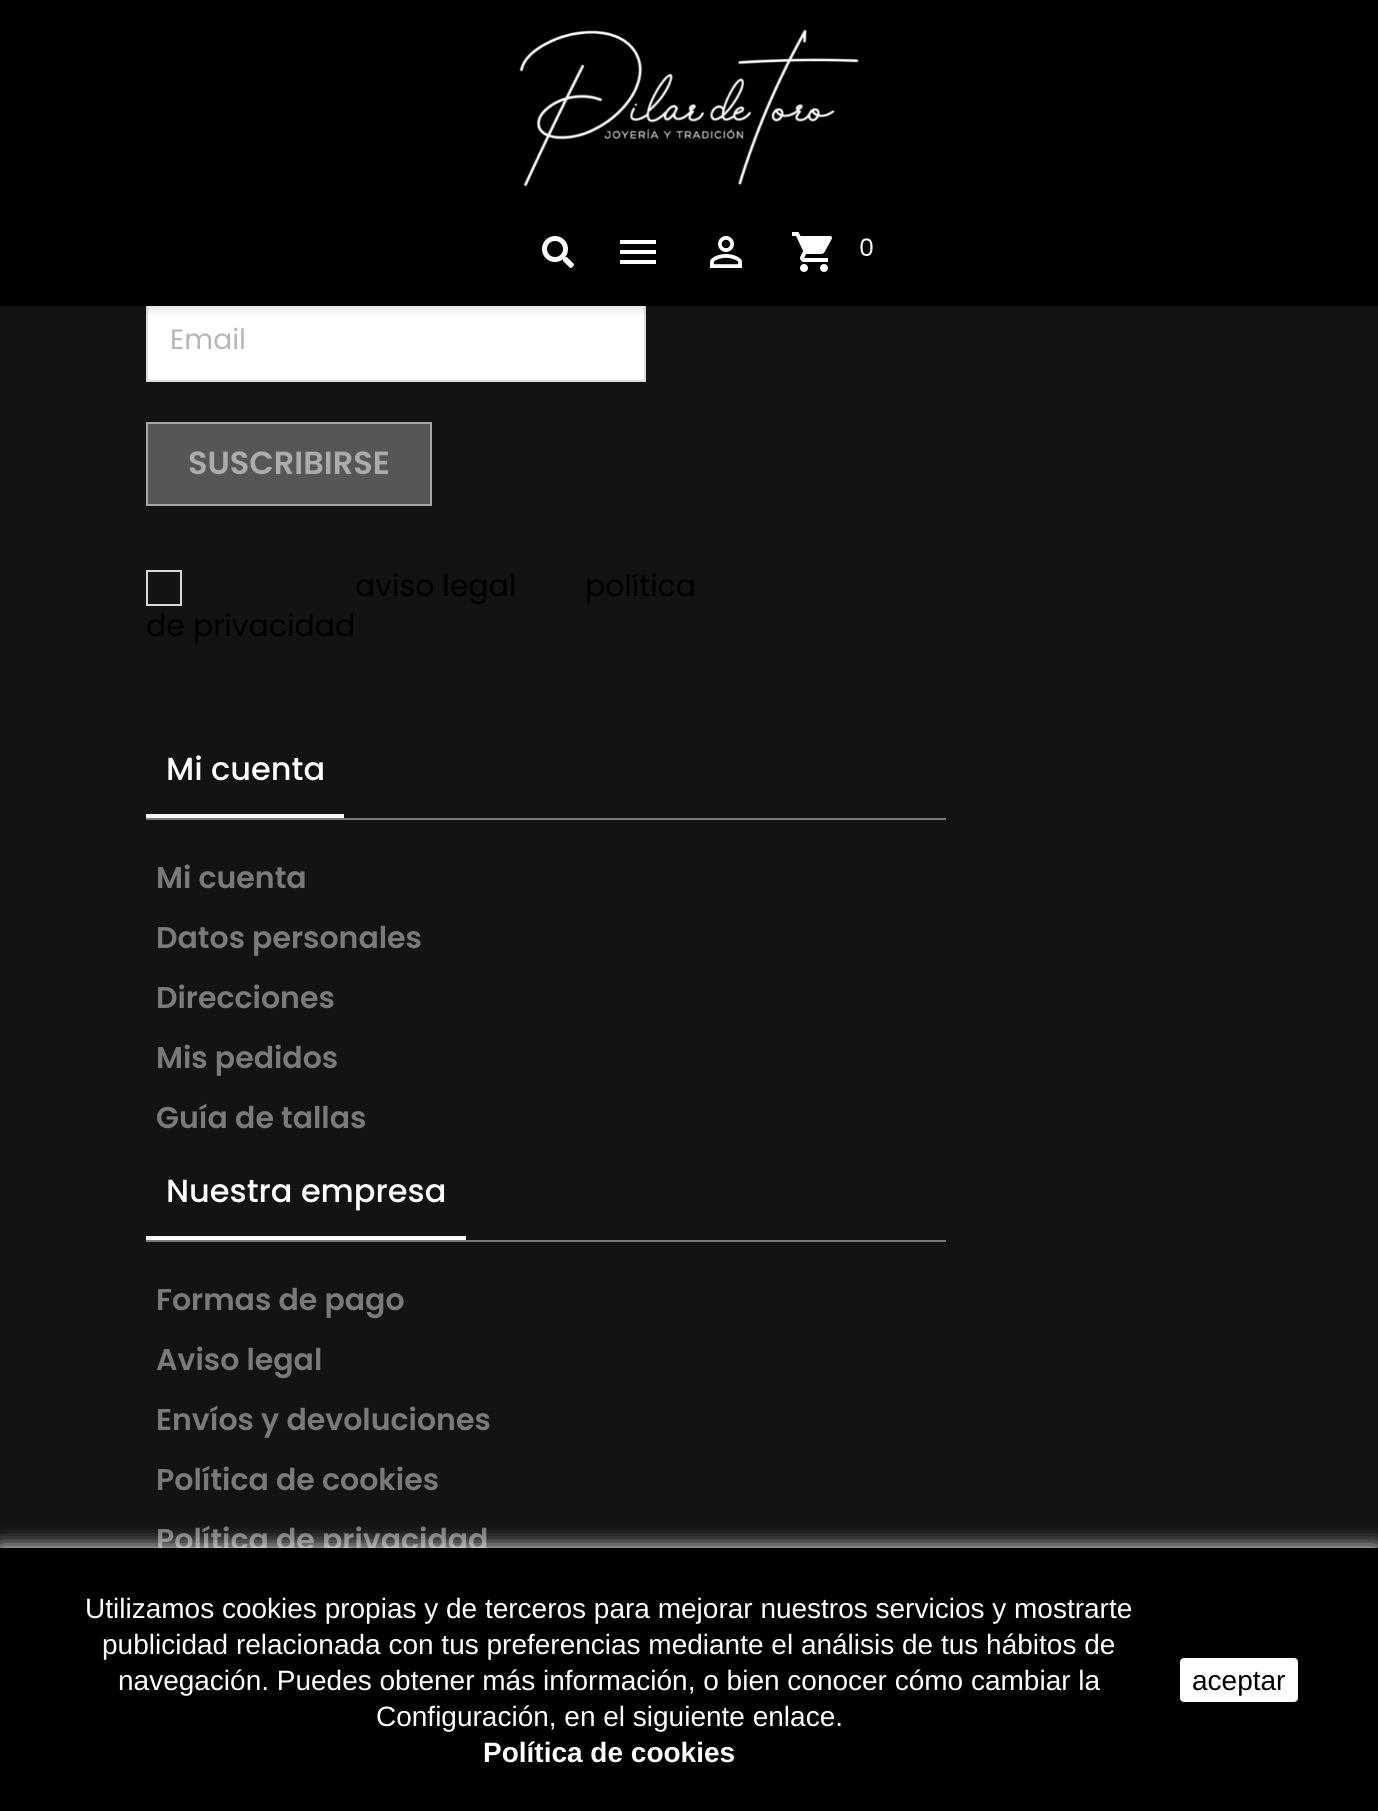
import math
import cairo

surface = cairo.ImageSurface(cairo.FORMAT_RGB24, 1378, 1811)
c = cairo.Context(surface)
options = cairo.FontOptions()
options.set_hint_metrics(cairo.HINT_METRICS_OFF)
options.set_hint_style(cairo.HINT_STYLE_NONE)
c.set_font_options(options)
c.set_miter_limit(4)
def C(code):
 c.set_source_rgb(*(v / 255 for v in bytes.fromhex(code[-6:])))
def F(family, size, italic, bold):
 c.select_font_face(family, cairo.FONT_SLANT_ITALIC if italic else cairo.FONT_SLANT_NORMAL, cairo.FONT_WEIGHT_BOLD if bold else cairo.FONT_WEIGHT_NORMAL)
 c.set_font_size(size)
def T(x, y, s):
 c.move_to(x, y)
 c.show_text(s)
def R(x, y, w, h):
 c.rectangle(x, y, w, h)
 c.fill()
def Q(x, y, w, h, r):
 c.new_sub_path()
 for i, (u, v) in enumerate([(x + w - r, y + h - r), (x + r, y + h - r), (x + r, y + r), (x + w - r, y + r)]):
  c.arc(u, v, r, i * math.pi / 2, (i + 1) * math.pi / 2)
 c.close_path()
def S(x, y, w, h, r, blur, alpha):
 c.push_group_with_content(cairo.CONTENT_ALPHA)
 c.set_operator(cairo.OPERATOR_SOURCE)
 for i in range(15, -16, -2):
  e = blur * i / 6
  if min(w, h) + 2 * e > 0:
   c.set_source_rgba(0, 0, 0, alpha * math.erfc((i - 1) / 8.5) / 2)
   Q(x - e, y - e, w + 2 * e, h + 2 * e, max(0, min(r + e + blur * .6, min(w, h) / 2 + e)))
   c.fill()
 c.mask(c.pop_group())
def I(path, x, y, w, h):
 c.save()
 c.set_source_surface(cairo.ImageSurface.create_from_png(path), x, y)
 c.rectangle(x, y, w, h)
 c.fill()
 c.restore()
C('131313')
c.paint()
C('ffffff')
R(148,306,496,74)
c.rectangle(147,299,498,82)
C('dddddd')
c.stroke()
C('000000')
S(0,4,1378,306,0,5,.11)
C('000000')
R(0,0,1378,306)
I('1.png',519,30,340,157)
I('2.png',542,236,32,32)
C('ffffff')
c.new_path()
c.move_to(620,240)
c.line_to(656,240)
c.line_to(656,244)
c.line_to(620,244)
c.close_path()
c.move_to(620,254)
c.line_to(620,250)
c.line_to(656,250)
c.line_to(656,254)
c.close_path()
c.move_to(620,264)
c.line_to(620,260)
c.line_to(656,260)
c.line_to(656,264)
c.close_path()
c.fill()
I('3.png',709,236,34,32)
I('4.png',791,232,41,40)
F('Poppins',24,0,0)
T(859,256,'0')
F('Poppins',28,0,0)
C('b7b7b7')
T(170,349,'Email')
C('565656')
c.rectangle(147,423,284,82)
c.fill_preserve()
C('a6a6a7')
c.stroke()
F('Poppins SemiBold',32,0,0)
C('acacac')
T(188,474,'SUSCRIBIRSE')
c.rectangle(147,571,34,34)
C('d8d8d8')
c.stroke()
F('Poppins',30,0,0)
C('000000')
T(355,596,'aviso legal')
T(585,596,'política')
T(146,636,'de privacidad')
C('f6f6f6')
R(146,814,198,2)
F('Poppins Medium',32,0,0)
C('ffffff')
T(166,780,'Mi cuenta')
R(146,816,198,2)
C('7a7a7a')
R(146,818,800,2)
F('Poppins SemiBold',30,0,0)
T(156,888,'Mi cuenta')
T(156,948,'Datos personales')
T(156,1008,'Direcciones')
T(156,1068,'Mis pedidos')
T(156,1128,'Guía de tallas')
C('f6f6f6')
R(146,1236,320,2)
F('Poppins Medium',32,0,0)
C('ffffff')
T(166,1202,'Nuestra empresa')
R(146,1238,320,2)
C('7a7a7a')
R(146,1240,800,2)
F('Poppins SemiBold',30,0,0)
T(156,1310,'Formas de pago')
T(156,1370,'Aviso legal')
T(156,1430,'Envíos y devoluciones')
T(156,1490,'Política de cookies')
T(156,1550,'Política de privacidad')
C('ffffff')
S(0,1548,1378,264,0,10,1)
C('000000')
R(0,1548,1378,263)
F('Liberation Sans',28,0,0)
C('ffffff')
T(85,1618,'Utilizamos cookies propias y de terceros para mejorar nuestros servicios y mostrarte')
T(102,1654,'publicidad relacionada con tus preferencias mediante el análisis de tus hábitos de')
T(118,1690,'navegación. Puedes obtener más información, o bien conocer cómo cambiar la')
T(376,1726,'Configuración, en el siguiente enlace.')
F('Liberation Sans',28,0,1)
T(483,1762,'Política de cookies')
Q(1180,1658,118,44,4)
c.fill()
F('Liberation Sans',28,0,0)
C('000000')
T(1192,1690,'aceptar')
surface.write_to_png('o.png')
